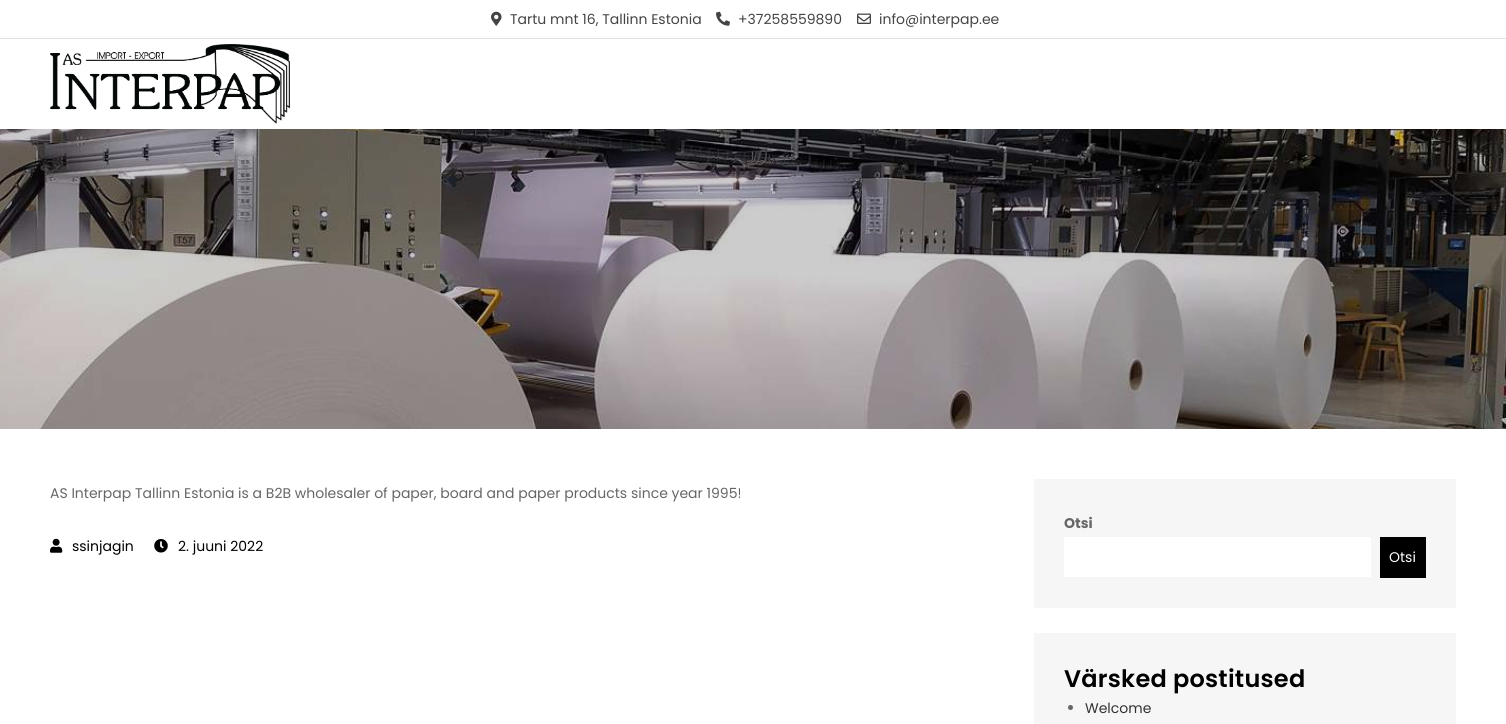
import math
import cairo

surface = cairo.ImageSurface(cairo.FORMAT_RGB24, 1506, 724)
c = cairo.Context(surface)
options = cairo.FontOptions()
options.set_hint_metrics(cairo.HINT_METRICS_OFF)
options.set_hint_style(cairo.HINT_STYLE_NONE)
c.set_font_options(options)
c.set_miter_limit(4)
def C(code):
 c.set_source_rgb(*(v / 255 for v in bytes.fromhex(code[-6:])))
def F(family, size, italic, bold):
 c.select_font_face(family, cairo.FONT_SLANT_ITALIC if italic else cairo.FONT_SLANT_NORMAL, cairo.FONT_WEIGHT_BOLD if bold else cairo.FONT_WEIGHT_NORMAL)
 c.set_font_size(size)
def T(x, y, s):
 c.move_to(x, y)
 c.show_text(s)
def L(x, y, s, letter, word):
 c.move_to(x, y)
 for ch in s:
  c.show_text(ch)
  c.rel_move_to(letter + word * (ch == ' '), 0)
def R(x, y, w, h):
 c.rectangle(x, y, w, h)
 c.fill()
def I(path, x, y, w, h):
 c.save()
 c.set_source_surface(cairo.ImageSurface.create_from_png(path), x, y)
 c.rectangle(x, y, w, h)
 c.fill()
 c.restore()
C('ffffff')
c.paint()
C('e1e1e1')
R(0,38,1506,1)
I('1.png',491,11,11,15)
F('Poppins',14,0,0)
C('444444')
T(510,24,'Tartu mnt 16, Tallinn Estonia')
I('2.png',716,11,14,15)
T(738,24,'+37258559890')
I('3.png',857,13,14,11)
T(879,24,'info@interpap.ee')
I('4.png',50,44,240,80)
I('5.png',0,129,1506,300)
C('666666')
T(50,498,'AS Interpap Tallinn Estonia is a B2B wholesaler of paper, board and paper products since year 1995!')
I('6.png',50,538,13,15)
C('000000')
T(72,551,'ssinjagin')
I('7.png',154,539,14,14)
T(178,551,'2. juuni 2022')
C('f6f6f6')
R(1034,479,422,129)
F('Poppins',14,0,1)
C('666666')
T(1064,528,'Otsi')
C('ffffff')
R(1064,537,307,40)
C('000000')
R(1380,537,46,41)
F('Poppins',14,0,0)
C('ffffff')
T(1389,562,'Otsi')
C('f6f6f6')
R(1034,633,422,91)
F('Poppins SemiBold',24,0,0)
C('000000')
L(1064,687,'Värsked postitused',.25,0)
C('666666')
c.new_path()
c.arc(1070.5,707.5,2.5,0,2 * math.pi)
c.fill()
F('Poppins',14,0,0)
C('333333')
T(1085,713,'Welcome')
surface.write_to_png('o.png')
